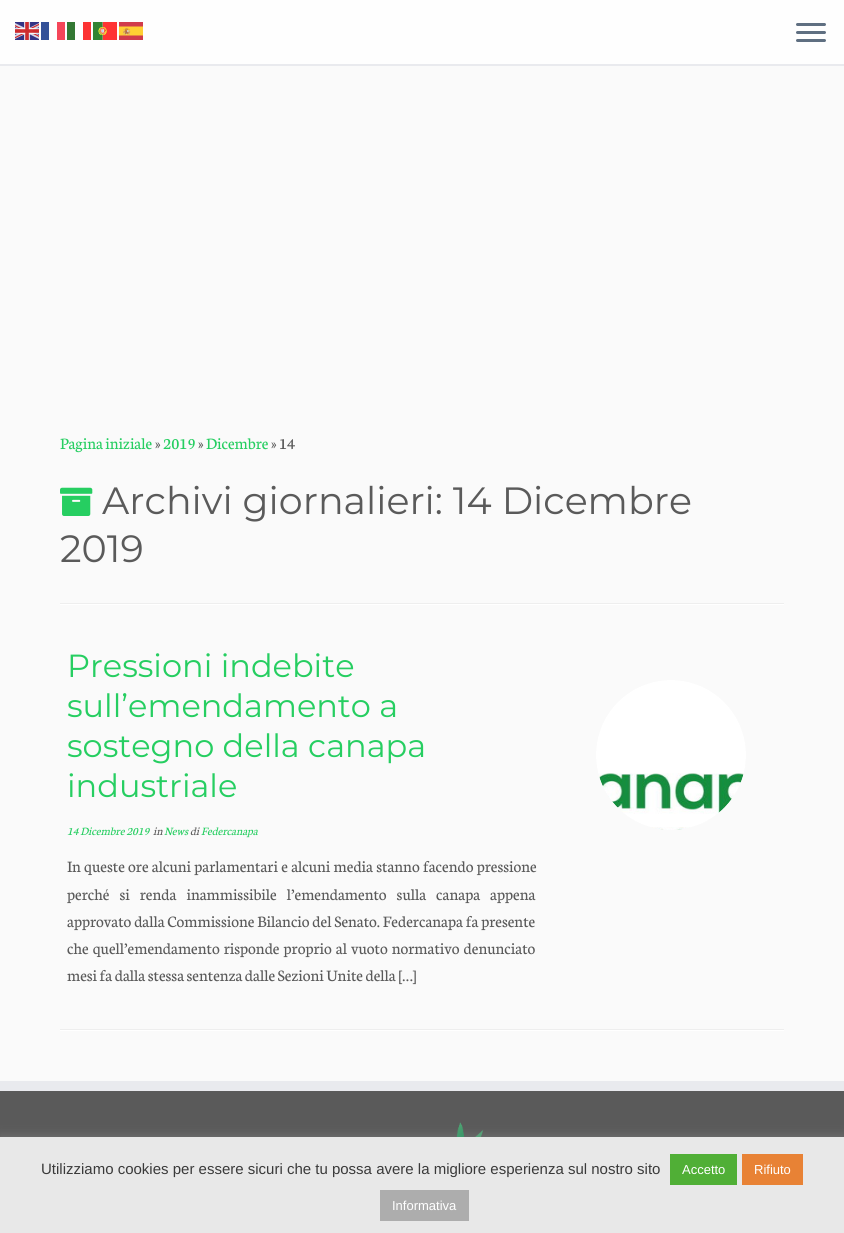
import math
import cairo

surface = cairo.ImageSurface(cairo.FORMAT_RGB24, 844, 1233)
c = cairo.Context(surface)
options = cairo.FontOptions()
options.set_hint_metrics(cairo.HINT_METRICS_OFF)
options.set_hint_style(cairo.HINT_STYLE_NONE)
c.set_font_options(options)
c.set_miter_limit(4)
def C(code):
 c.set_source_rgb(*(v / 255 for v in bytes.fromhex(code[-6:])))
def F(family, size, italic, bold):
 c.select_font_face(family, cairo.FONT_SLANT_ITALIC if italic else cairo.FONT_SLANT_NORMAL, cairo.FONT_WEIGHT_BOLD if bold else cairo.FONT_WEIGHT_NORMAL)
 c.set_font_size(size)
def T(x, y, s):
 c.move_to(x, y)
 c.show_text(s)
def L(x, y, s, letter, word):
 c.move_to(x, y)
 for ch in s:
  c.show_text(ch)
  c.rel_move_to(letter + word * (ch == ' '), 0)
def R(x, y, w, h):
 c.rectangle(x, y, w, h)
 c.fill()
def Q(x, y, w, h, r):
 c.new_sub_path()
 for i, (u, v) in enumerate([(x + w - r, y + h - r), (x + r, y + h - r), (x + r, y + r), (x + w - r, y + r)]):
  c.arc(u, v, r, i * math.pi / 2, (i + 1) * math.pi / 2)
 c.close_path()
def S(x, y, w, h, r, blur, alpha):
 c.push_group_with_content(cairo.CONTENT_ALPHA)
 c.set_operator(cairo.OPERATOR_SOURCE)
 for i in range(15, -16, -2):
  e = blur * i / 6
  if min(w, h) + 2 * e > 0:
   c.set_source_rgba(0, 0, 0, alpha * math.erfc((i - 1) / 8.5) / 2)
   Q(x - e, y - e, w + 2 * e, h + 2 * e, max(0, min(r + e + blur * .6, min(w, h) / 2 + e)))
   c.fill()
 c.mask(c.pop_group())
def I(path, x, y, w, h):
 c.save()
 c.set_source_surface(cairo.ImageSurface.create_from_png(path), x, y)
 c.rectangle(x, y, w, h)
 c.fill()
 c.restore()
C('fafafa')
c.paint()
C('fefefe')
R(0,0,844,64)
I('1.png',15,22,24,18)
C('335198')
R(41,22,8,18)
C('f54659')
R(57,22,8,18)
C('337833')
R(67,22,8,18)
C('fc3333')
R(83,22,8,18)
I('2.png',93,22,24,18)
I('3.png',119,22,24,18)
C('e9eaee')
R(0,64,844,2)
C('5f6f81')
Q(796,23,30,3,1.5)
c.fill()
Q(796,31,30,3,1.5)
c.fill()
Q(796,39,30,3,1.5)
c.fill()
F('Neuton',17,0,0)
C('26ce61')
T(60,449,'Pagina iniziale')
C('5a5a5a')
T(155,449,'»')
C('26ce61')
T(163,449,'2019')
C('5a5a5a')
T(198,449,'»')
C('26ce61')
T(206,449,'Dicembre')
C('5a5a5a')
T(271,449,'» 14')
I('4.png',60,487,33,29)
F('Montserrat Thin',38,0,0)
T(102,514,'Archivi giornalieri: 14 Dicembre')
T(60,562,'2019')
C('eeeeee')
R(60,603,724,1)
C('ffffff')
R(60,604,724,1)
F('Montserrat Thin',32,0,0)
C('26ce61')
T(67,677,'Pressioni indebite')
T(67,717,'sull’emendamento a')
T(67,757,'sostegno della canapa')
T(67,797,'industriale')
F('Neuton',12,1,0)
T(67,835,'14 Dicembre 2019')
C('5a5a5a')
T(153,835,'in')
C('26ce61')
T(164,835,'News')
C('5a5a5a')
T(190,835,'di')
C('26ce61')
T(201,835,'Federcanapa')
F('Neuton',17,0,0)
C('5a5a5a')
L(67,872,'In queste ore alcuni parlamentari e alcuni media stanno facendo pressione',0,.75)
L(67,900,'perché si renda inammissibile l’emendamento sulla canapa appena',0,7.5)
L(67,927,'approvato dalla Commissione Bilancio del Senato. Federcanapa fa presente',0,.25)
L(67,954,'che quell’emendamento risponde proprio al vuoto normativo denunciato',0,1.5)
T(67,981,'mesi fa dalla stessa sentenza dalle Sezioni Unite della […]')
I('5.png',596,680,150,150)
c.save()
c.rectangle(569,635,201,250)
c.clip()
c.arc(671,755,122,0,2 * math.pi)
C('fafafa')
c.set_line_width(94)
c.stroke()
c.arc(671,755,122,0,2 * math.pi)
c.stroke()
c.restore()
C('eeeeee')
R(60,1029,724,1)
C('ffffff')
R(60,1030,724,1)
C('5a5a5a')
R(0,1091,844,46)
C('e9eaee')
R(0,1081,844,10)
I('6.png',456,1122,28,15)
C('acabab')
S(0,1136,844,96,0,5,.3)
C('e8e8e8')
R(0,1137,844,96)
F('Liberation Sans',15,0,0)
C('3a3a3a')
T(41,1174,'Utilizziamo cookies per essere sicuri che tu possa avere la migliore esperienza sul nostro sito')
C('50af36')
R(670,1154,67,31)
F('Liberation Sans',13,0,0)
C('ffffff')
T(682,1174,'Accetto')
C('e88235')
R(742,1154,61,31)
C('ffffff')
T(754,1174,'Rifiuto')
C('adadad')
R(380,1190,89,31)
C('ffffff')
T(392,1210,'Informativa')
surface.write_to_png('o.png')
